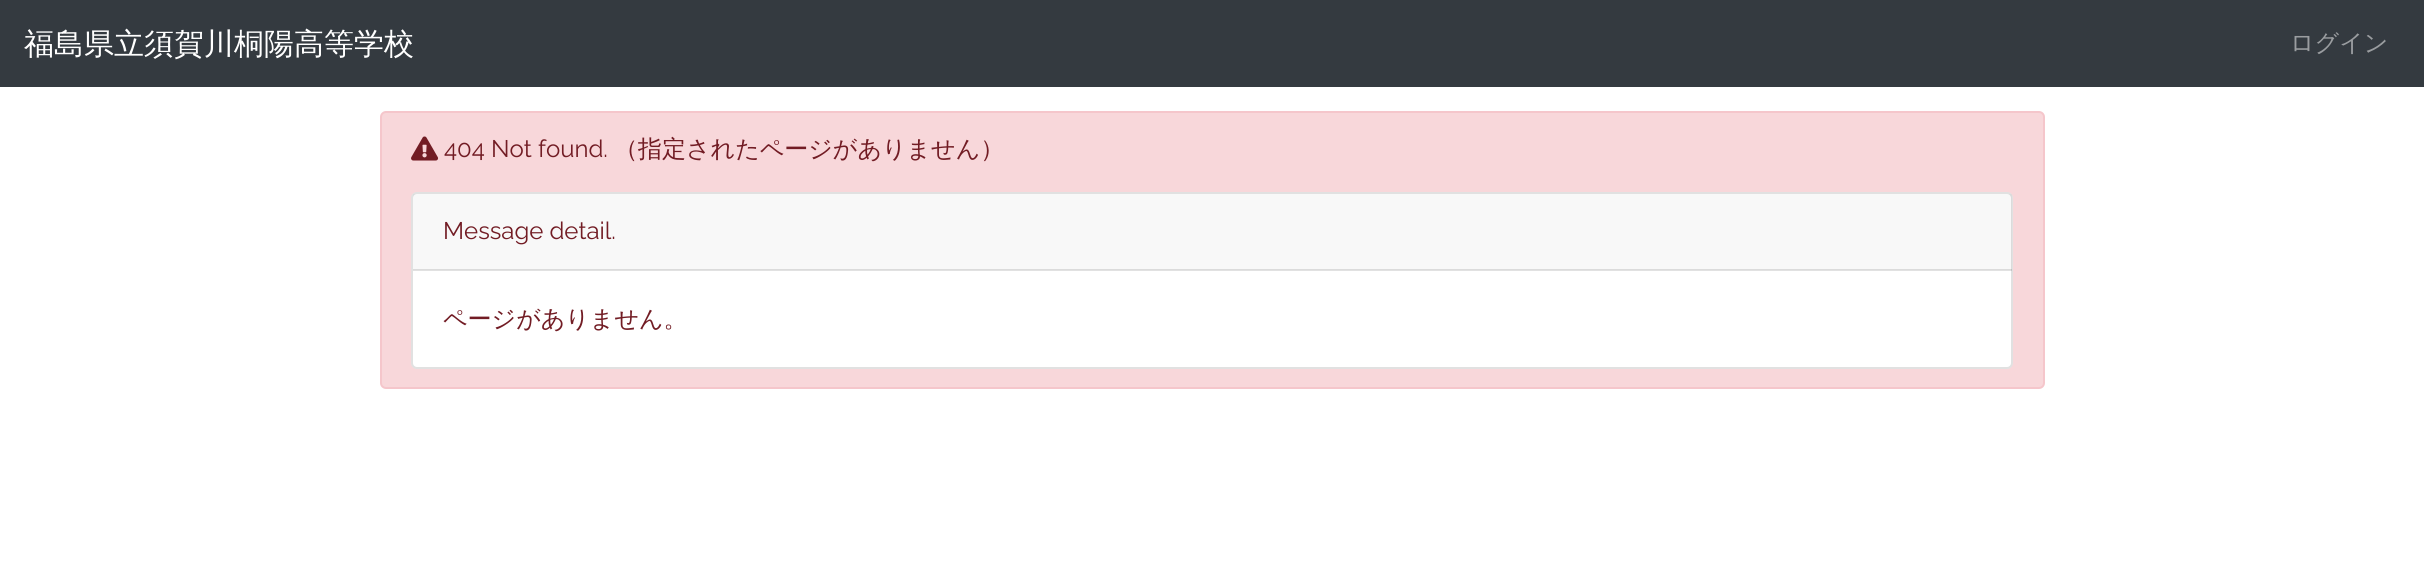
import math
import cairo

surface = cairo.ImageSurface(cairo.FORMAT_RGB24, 2424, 564)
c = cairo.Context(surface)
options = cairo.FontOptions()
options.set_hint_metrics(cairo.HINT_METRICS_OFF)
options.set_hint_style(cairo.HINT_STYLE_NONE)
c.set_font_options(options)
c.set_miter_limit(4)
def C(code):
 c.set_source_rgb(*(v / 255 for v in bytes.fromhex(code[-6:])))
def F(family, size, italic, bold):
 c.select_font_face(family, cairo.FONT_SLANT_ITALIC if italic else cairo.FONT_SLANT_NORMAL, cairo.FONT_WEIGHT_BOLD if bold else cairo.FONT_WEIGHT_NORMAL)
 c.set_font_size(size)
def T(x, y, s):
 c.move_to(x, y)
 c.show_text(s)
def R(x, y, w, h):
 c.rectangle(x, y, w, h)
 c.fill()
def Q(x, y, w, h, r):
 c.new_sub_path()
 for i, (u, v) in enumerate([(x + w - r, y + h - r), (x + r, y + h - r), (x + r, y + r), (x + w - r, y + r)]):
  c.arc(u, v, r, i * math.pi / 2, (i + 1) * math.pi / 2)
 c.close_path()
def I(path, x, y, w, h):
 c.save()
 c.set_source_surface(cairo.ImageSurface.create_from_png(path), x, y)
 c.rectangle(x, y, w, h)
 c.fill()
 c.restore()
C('ffffff')
c.paint()
C('343a40')
R(0,0,2424,87)
F('WenQuanYi Zen Hei Medium',30,0,0)
C('ffffff')
T(24,54,'福島県立須賀川桐陽高等学校')
F('WenQuanYi Zen Hei Medium',24,0,0)
C('9a9da0')
T(2290,51,'ログイン')
C('f8d7da')
Q(381,112,1663,276,5)
c.fill_preserve()
C('f5c6cb')
c.stroke()
I('1.png',411,136,28,25)
F('Raleway',24,0,0)
C('721c24')
T(444,157,'404 Not found.')
F('WenQuanYi Zen Hei Medium',24,0,0)
T(614,157,'（指定されたページがありません）')
C('ffffff')
Q(411,192,1602,177,6)
c.fill()
Q(412,193,1600,175,5)
c.set_source_rgba(0,0,0,0.12)
c.stroke()
c.set_source_rgba(0,0,0,0.03)
R(413,194,1599,76)
c.set_source_rgba(0,0,0,0.12)
R(413,269,1599,2)
F('Raleway',24,0,0)
C('721c24')
T(443,239,'Message detail.')
F('WenQuanYi Zen Hei Medium',24,0,0)
T(443,327,'ページがありません。')
surface.write_to_png('o.png')
